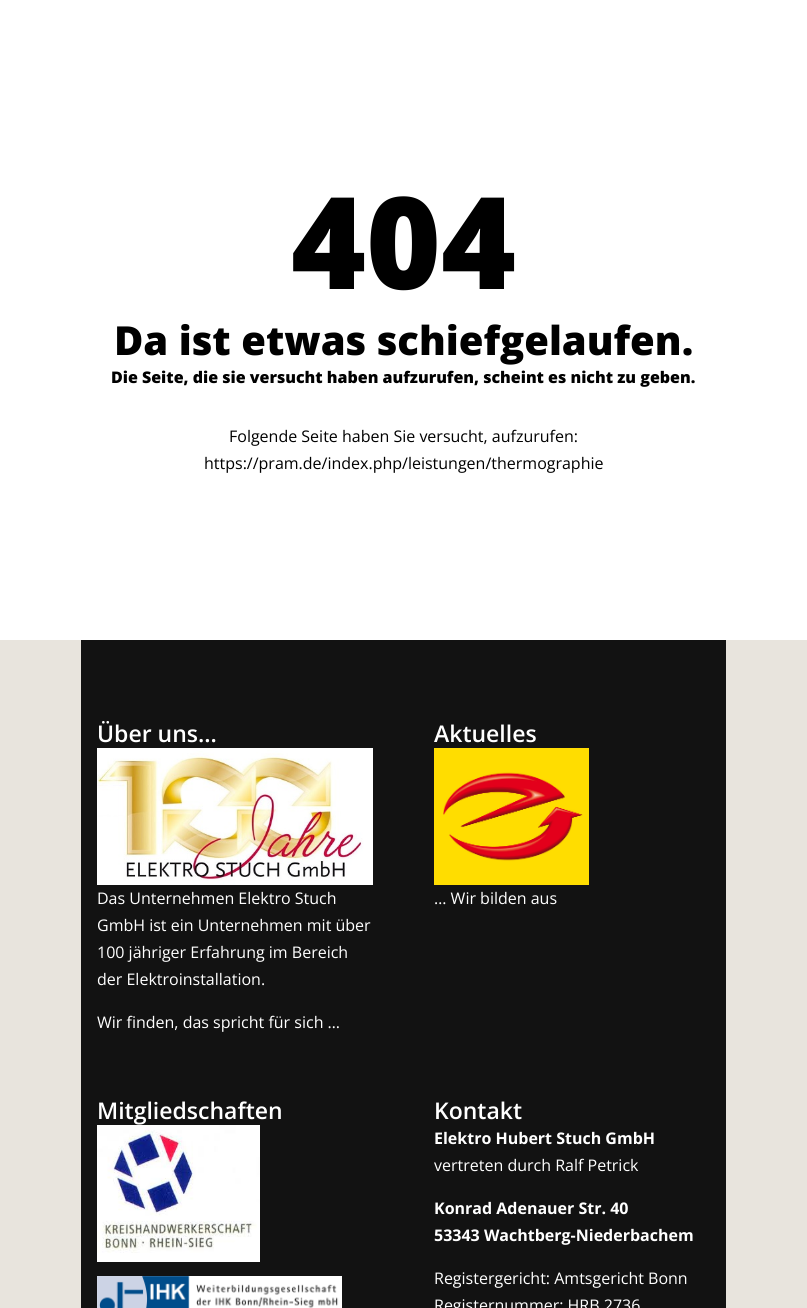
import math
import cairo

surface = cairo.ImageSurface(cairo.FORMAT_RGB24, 807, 1308)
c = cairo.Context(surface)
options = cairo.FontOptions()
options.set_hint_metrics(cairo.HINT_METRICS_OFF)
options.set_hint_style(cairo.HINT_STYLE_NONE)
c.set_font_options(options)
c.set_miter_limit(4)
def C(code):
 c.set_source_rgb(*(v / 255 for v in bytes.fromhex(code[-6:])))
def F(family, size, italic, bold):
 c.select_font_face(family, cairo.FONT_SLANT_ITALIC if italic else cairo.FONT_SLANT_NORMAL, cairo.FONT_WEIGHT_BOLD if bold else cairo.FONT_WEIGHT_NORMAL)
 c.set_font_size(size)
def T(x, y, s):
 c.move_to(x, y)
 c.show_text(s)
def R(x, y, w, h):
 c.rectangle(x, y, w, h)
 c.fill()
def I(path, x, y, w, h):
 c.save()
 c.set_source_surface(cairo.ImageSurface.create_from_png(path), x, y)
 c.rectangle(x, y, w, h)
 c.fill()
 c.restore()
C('e8e4dd')
c.paint()
C('ffffff')
R(0,0,807,640)
F('Open Sans ExtraBold',128,0,0)
C('000000')
T(291,289,'404')
F('Open Sans ExtraBold',40,0,0)
T(114,355,'Da ist etwas schiefgelaufen.')
F('Open Sans ExtraBold',16,0,0)
T(111,383,'Die Seite, die sie versucht haben aufzurufen, scheint es nicht zu geben.')
F('Open Sans',16,0,0)
T(229,442,'Folgende Seite haben Sie versucht, aufzurufen:')
T(204,469,'https://pram.de/index.php/leistungen/thermographie')
C('121212')
R(81,640,645,668)
F('Open Sans SemiBold',23,0,0)
C('ffffff')
T(97,742,'Über uns…')
I('1.png',97,748,276,137)
F('Open Sans',16,0,0)
T(97,904,'Das Unternehmen Elektro Stuch')
T(97,931,'GmbH ist ein Unternehmen mit über')
T(97,958,'100 jähriger Erfahrung im Bereich')
T(97,985,'der Elektroinstallation.')
T(97,1028,'Wir finden, das spricht für sich …')
F('Open Sans SemiBold',23,0,0)
T(434,742,'Aktuelles')
I('2.png',434,748,155,137)
F('Open Sans',16,0,0)
T(434,904,'… Wir bilden aus')
F('Open Sans SemiBold',23,0,0)
T(97,1119,'Mitgliedschaften')
I('3.png',97,1125,163,137)
I('4.png',97,1276,245,32)
T(434,1119,'Kontakt')
F('Open Sans',16,0,1)
T(434,1144,'Elektro Hubert Stuch GmbH')
F('Open Sans',16,0,0)
T(434,1171,'vertreten durch Ralf Petrick')
F('Open Sans',16,0,1)
T(434,1214,'Konrad Adenauer Str. 40')
T(434,1241,'53343 Wachtberg-Niederbachem')
F('Open Sans',16,0,0)
T(434,1284,'Registergericht: Amtsgericht Bonn')
T(434,1311,'Registernummer: HRB 2736')
surface.write_to_png('o.png')
